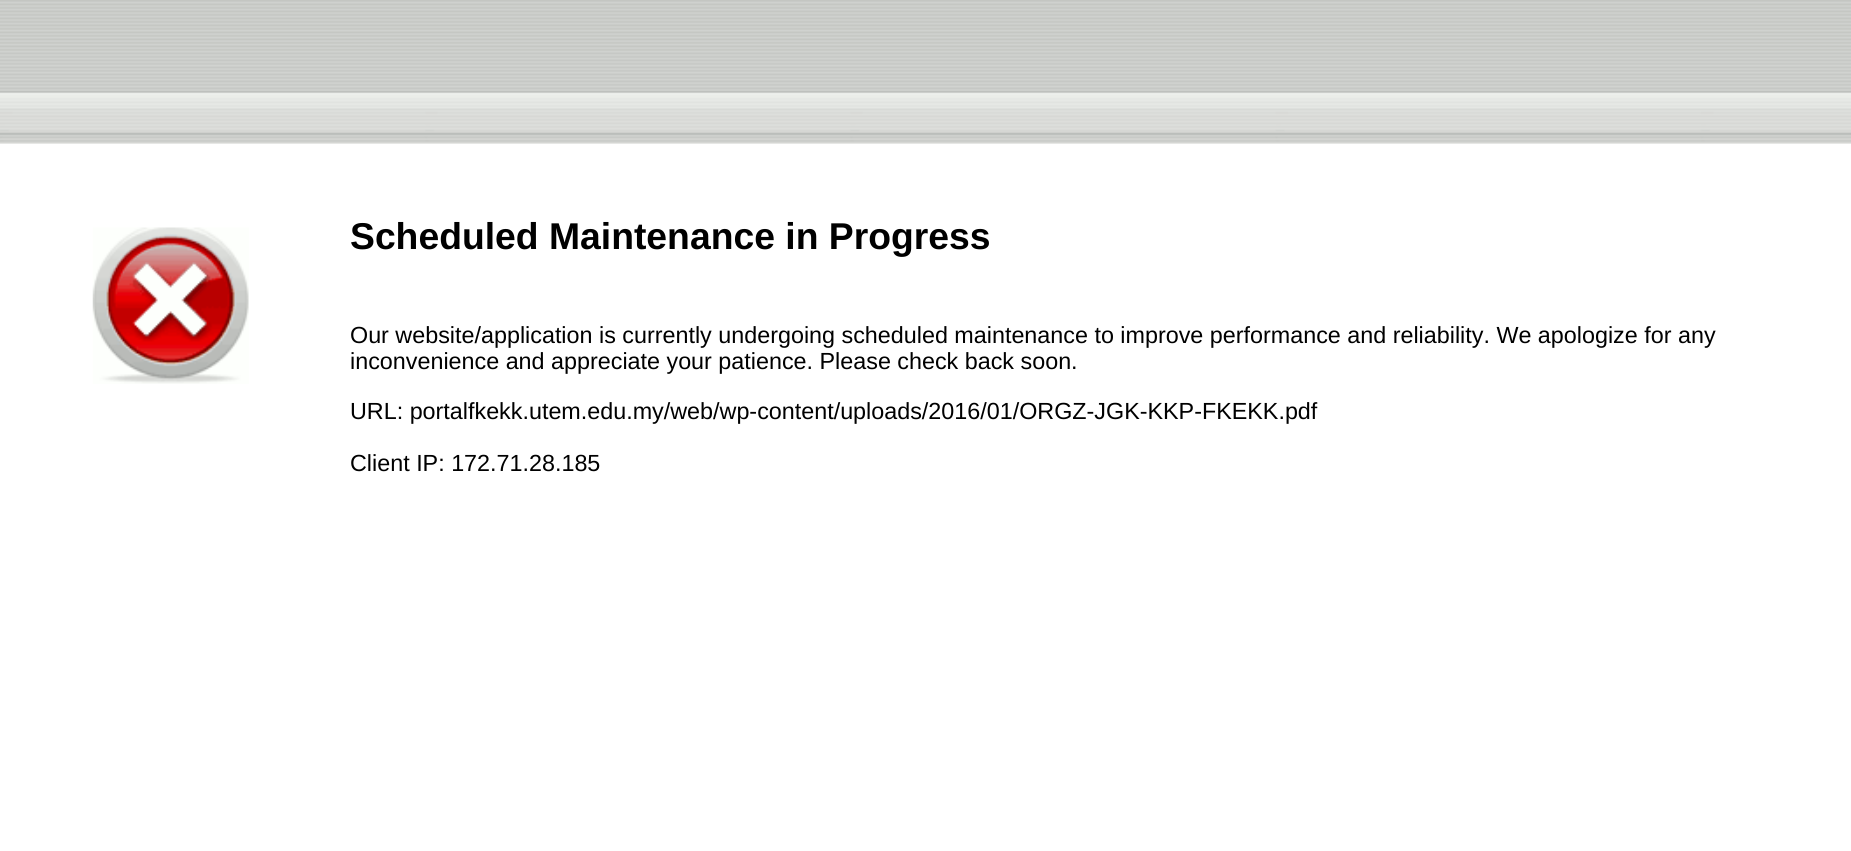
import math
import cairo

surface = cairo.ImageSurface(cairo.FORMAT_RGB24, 1851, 851)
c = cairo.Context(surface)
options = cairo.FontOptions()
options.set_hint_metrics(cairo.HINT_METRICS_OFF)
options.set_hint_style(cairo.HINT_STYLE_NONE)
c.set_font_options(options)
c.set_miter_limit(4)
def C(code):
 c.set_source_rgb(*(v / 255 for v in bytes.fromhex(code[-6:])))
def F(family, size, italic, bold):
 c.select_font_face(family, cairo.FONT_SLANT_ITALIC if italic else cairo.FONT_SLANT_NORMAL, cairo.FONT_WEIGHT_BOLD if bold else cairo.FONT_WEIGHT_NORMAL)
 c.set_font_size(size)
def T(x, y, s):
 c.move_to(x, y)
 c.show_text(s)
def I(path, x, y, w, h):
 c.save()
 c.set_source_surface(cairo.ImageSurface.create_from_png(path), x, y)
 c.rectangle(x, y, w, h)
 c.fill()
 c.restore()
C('ffffff')
c.paint()
I('1.png',0,0,1851,144)
I('2.png',92,227,157,157)
F('Liberation Sans',37.3,0,1)
C('000000')
T(350,249,'Scheduled Maintenance in Progress')
F('Liberation Sans',23.33,0,0)
T(350,343,'Our website/application is currently undergoing scheduled maintenance to improve performance and reliability. We apologize for any')
T(350,369,'inconvenience and appreciate your patience. Please check back soon.')
T(350,419,'URL: portalfkekk.utem.edu.my/web/wp-content/uploads/2016/01/ORGZ-JGK-KKP-FKEKK.pdf')
T(350,471,'Client IP: 172.71.28.185')
surface.write_to_png('o.png')
